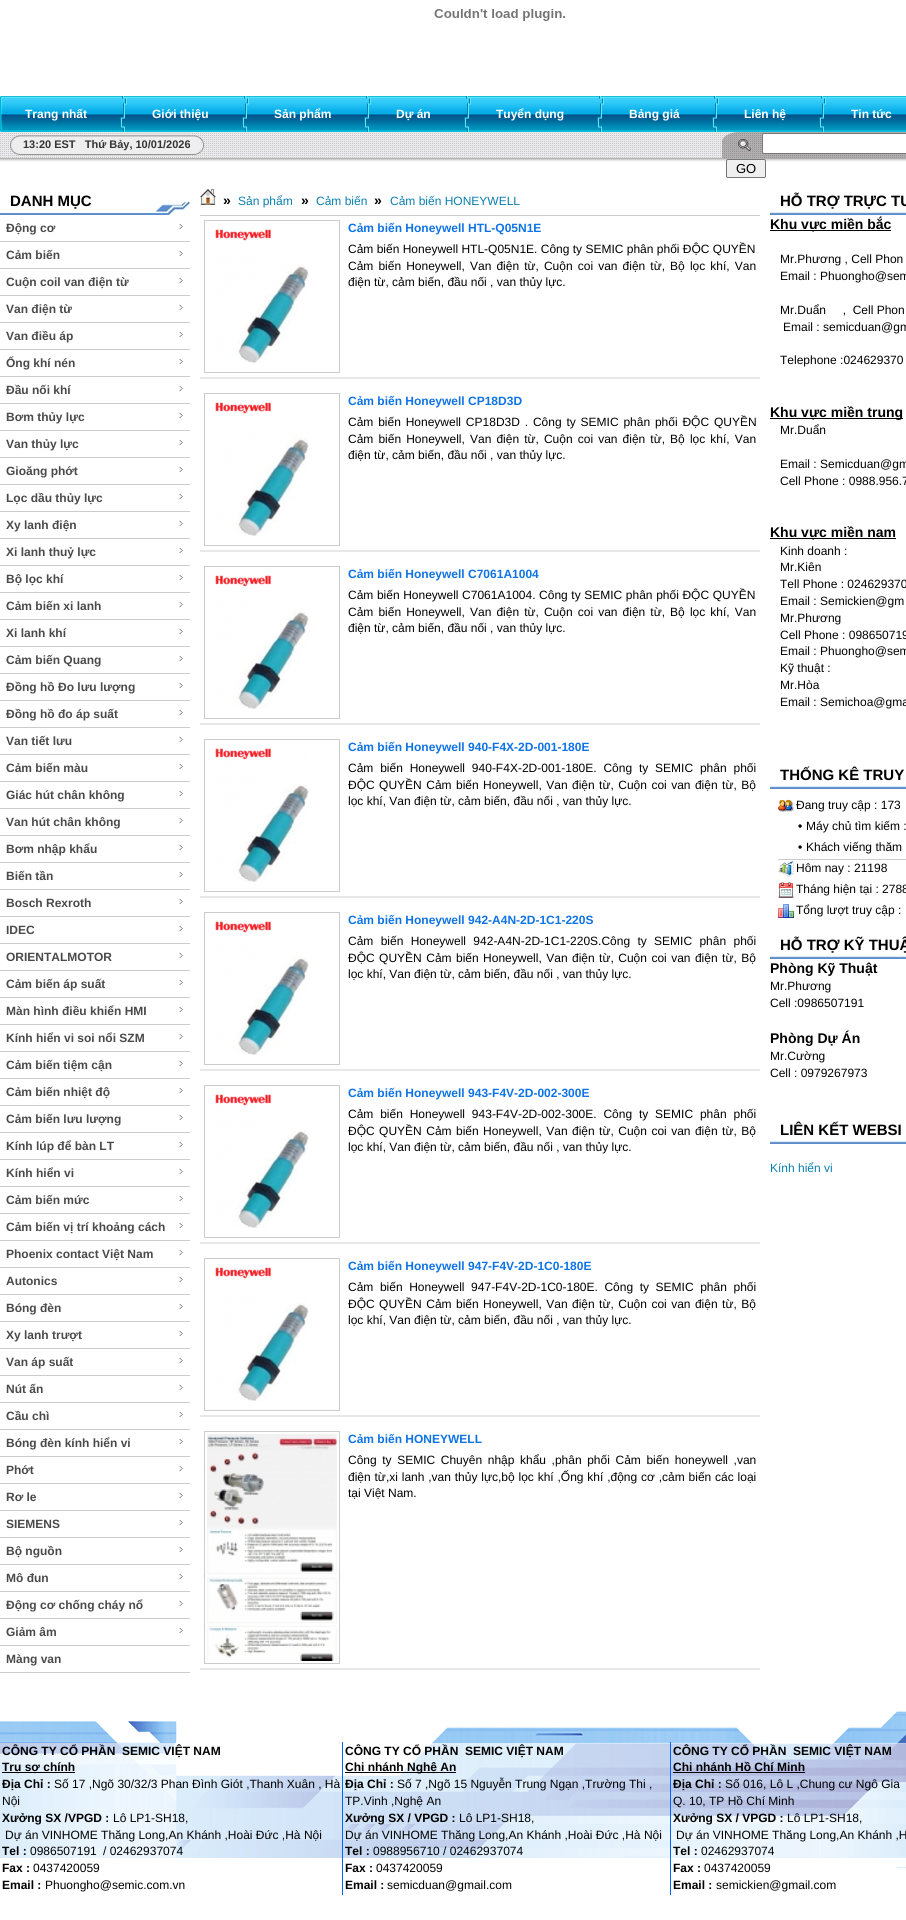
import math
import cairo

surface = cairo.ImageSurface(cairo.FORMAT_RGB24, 906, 1920)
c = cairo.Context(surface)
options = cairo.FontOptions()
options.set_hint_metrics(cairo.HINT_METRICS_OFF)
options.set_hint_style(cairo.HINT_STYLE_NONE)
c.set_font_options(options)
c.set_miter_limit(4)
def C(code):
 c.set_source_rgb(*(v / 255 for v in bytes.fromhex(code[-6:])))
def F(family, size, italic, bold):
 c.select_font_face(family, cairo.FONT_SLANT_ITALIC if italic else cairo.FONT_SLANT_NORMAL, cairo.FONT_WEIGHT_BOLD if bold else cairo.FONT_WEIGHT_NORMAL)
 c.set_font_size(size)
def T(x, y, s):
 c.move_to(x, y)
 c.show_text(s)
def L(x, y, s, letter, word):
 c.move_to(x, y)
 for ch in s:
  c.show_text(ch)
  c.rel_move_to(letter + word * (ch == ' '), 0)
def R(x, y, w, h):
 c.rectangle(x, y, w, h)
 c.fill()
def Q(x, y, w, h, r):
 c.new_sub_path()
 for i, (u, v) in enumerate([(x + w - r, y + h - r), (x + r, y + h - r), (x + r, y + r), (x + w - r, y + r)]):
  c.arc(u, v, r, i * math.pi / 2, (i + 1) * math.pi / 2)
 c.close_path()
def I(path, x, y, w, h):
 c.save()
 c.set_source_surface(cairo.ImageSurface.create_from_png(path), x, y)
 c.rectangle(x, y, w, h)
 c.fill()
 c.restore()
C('ffffff')
c.paint()
I('1.png',434,9,131,12)
I('2.png',0,96,906,36)
I('3.png',120,96,7,36)
F('Liberation Sans',12,0,1)
C('ffffff')
T(25,118,'Trang nhất')
I('3.png',242,96,7,36)
T(152,118,'Giới thiệu')
I('3.png',364,96,7,36)
T(274,118,'Sản phẩm')
I('3.png',464,96,7,36)
T(396,118,'Dự án')
I('3.png',597,96,7,36)
T(496,118,'Tuyển dụng')
I('3.png',712,96,7,36)
T(629,118,'Bảng giá')
I('3.png',819,96,7,36)
T(744,118,'Liên hệ')
T(851,118,'Tin tức')
I('4.png',0,132,906,30)
I('5.png',191,135,13,20)
I('6.png',10,133,181,23)
F('Liberation Sans',11,0,1)
C('333333')
T(23,148,'13:20 EST   Thứ Bảy, 10/01/2026')
I('7.png',722,132,184,26)
C('ffffff')
Q(762.5,133.5,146,20,1.5)
c.fill_preserve()
C('767676')
c.set_line_width(1)
c.stroke()
C('efefef')
Q(726.5,159.5,39,18,1.5)
c.fill_preserve()
C('767676')
c.stroke()
F('Liberation Sans',13,0,0)
C('000000')
T(736,173,'GO')
I('8.png',0,201,190,14)
F('Liberation Sans',15,0,1)
T(10,206,'DANH MỤC')
C('cccccc')
R(0,241,190,1)
F('Liberation Sans',12,0,1)
C('4a4a4a')
T(6,232,'Động cơ')
I('9.png',179,224,4,5)
C('cccccc')
R(0,268,190,1)
C('4a4a4a')
T(6,259,'Cảm biến')
I('9.png',179,251,4,5)
C('cccccc')
R(0,295,190,1)
C('4a4a4a')
T(6,286,'Cuộn coil van điện từ')
I('9.png',179,278,4,5)
C('cccccc')
R(0,322,190,1)
C('4a4a4a')
T(6,313,'Van điện từ')
I('9.png',179,305,4,5)
C('cccccc')
R(0,349,190,1)
C('4a4a4a')
T(6,340,'Van điều áp')
I('9.png',179,332,4,5)
C('cccccc')
R(0,376,190,1)
C('4a4a4a')
T(6,367,'Ống khí nén')
I('9.png',179,359,4,5)
C('cccccc')
R(0,403,190,1)
C('4a4a4a')
T(6,394,'Đầu nối khí')
I('9.png',179,386,4,5)
C('cccccc')
R(0,430,190,1)
C('4a4a4a')
T(6,421,'Bơm thủy lực')
I('9.png',179,413,4,5)
C('cccccc')
R(0,457,190,1)
C('4a4a4a')
T(6,448,'Van thủy lực')
I('9.png',179,440,4,5)
C('cccccc')
R(0,484,190,1)
C('4a4a4a')
T(6,475,'Gioăng phớt')
I('9.png',179,467,4,5)
C('cccccc')
R(0,511,190,1)
C('4a4a4a')
T(6,502,'Lọc dầu thủy lực')
I('9.png',179,494,4,5)
C('cccccc')
R(0,538,190,1)
C('4a4a4a')
T(6,529,'Xy lanh điện')
I('9.png',179,521,4,5)
C('cccccc')
R(0,565,190,1)
C('4a4a4a')
T(6,556,'Xi lanh thuỷ lực')
I('9.png',179,548,4,5)
C('cccccc')
R(0,592,190,1)
C('4a4a4a')
T(6,583,'Bộ lọc khí')
I('9.png',179,575,4,5)
C('cccccc')
R(0,619,190,1)
C('4a4a4a')
T(6,610,'Cảm biến xi lanh')
I('9.png',179,602,4,5)
C('cccccc')
R(0,646,190,1)
C('4a4a4a')
T(6,637,'Xi lanh khí')
I('9.png',179,629,4,5)
C('cccccc')
R(0,673,190,1)
C('4a4a4a')
T(6,664,'Cảm biến Quang')
I('9.png',179,656,4,5)
C('cccccc')
R(0,700,190,1)
C('4a4a4a')
T(6,691,'Đồng hồ Đo lưu lượng')
I('9.png',179,683,4,5)
C('cccccc')
R(0,727,190,1)
C('4a4a4a')
T(6,718,'Đồng hồ đo áp suất')
I('9.png',179,710,4,5)
C('cccccc')
R(0,754,190,1)
C('4a4a4a')
T(6,745,'Van tiết lưu')
I('9.png',179,737,4,5)
C('cccccc')
R(0,781,190,1)
C('4a4a4a')
T(6,772,'Cảm biến màu')
I('9.png',179,764,4,5)
C('cccccc')
R(0,808,190,1)
C('4a4a4a')
T(6,799,'Giác hút chân không')
I('9.png',179,791,4,5)
C('cccccc')
R(0,835,190,1)
C('4a4a4a')
T(6,826,'Van hút chân không')
I('9.png',179,818,4,5)
C('cccccc')
R(0,862,190,1)
C('4a4a4a')
T(6,853,'Bơm nhập khẩu')
I('9.png',179,845,4,5)
C('cccccc')
R(0,889,190,1)
C('4a4a4a')
T(6,880,'Biến tần')
I('9.png',179,872,4,5)
C('cccccc')
R(0,916,190,1)
C('4a4a4a')
T(6,907,'Bosch Rexroth')
I('9.png',179,899,4,5)
C('cccccc')
R(0,943,190,1)
C('4a4a4a')
T(6,934,'IDEC')
I('9.png',179,926,4,5)
C('cccccc')
R(0,970,190,1)
C('4a4a4a')
T(6,961,'ORIENTALMOTOR')
I('9.png',179,953,4,5)
C('cccccc')
R(0,997,190,1)
C('4a4a4a')
T(6,988,'Cảm biến áp suất')
I('9.png',179,980,4,5)
C('cccccc')
R(0,1024,190,1)
C('4a4a4a')
T(6,1015,'Màn hình điều khiển HMI')
I('9.png',179,1007,4,5)
C('cccccc')
R(0,1051,190,1)
C('4a4a4a')
T(6,1042,'Kính hiển vi soi nổi SZM')
I('9.png',179,1034,4,5)
C('cccccc')
R(0,1078,190,1)
C('4a4a4a')
T(6,1069,'Cảm biến tiệm cận')
I('9.png',179,1061,4,5)
C('cccccc')
R(0,1105,190,1)
C('4a4a4a')
T(6,1096,'Cảm biến nhiệt độ')
I('9.png',179,1088,4,5)
C('cccccc')
R(0,1132,190,1)
C('4a4a4a')
T(6,1123,'Cảm biến lưu lượng')
I('9.png',179,1115,4,5)
C('cccccc')
R(0,1159,190,1)
C('4a4a4a')
T(6,1150,'Kính lúp để bàn LT')
I('9.png',179,1142,4,5)
C('cccccc')
R(0,1186,190,1)
C('4a4a4a')
T(6,1177,'Kính hiển vi')
I('9.png',179,1169,4,5)
C('cccccc')
R(0,1213,190,1)
C('4a4a4a')
T(6,1204,'Cảm biến mức')
I('9.png',179,1196,4,5)
C('cccccc')
R(0,1240,190,1)
C('4a4a4a')
T(6,1231,'Cảm biến vị trí khoảng cách')
I('9.png',179,1223,4,5)
C('cccccc')
R(0,1267,190,1)
C('4a4a4a')
T(6,1258,'Phoenix contact Việt Nam')
I('9.png',179,1250,4,5)
C('cccccc')
R(0,1294,190,1)
C('4a4a4a')
T(6,1285,'Autonics')
I('9.png',179,1277,4,5)
C('cccccc')
R(0,1321,190,1)
C('4a4a4a')
T(6,1312,'Bóng đèn')
I('9.png',179,1304,4,5)
C('cccccc')
R(0,1348,190,1)
C('4a4a4a')
T(6,1339,'Xy lanh trượt')
I('9.png',179,1331,4,5)
C('cccccc')
R(0,1375,190,1)
C('4a4a4a')
T(6,1366,'Van áp suất')
I('9.png',179,1358,4,5)
C('cccccc')
R(0,1402,190,1)
C('4a4a4a')
T(6,1393,'Nút ấn')
I('9.png',179,1385,4,5)
C('cccccc')
R(0,1429,190,1)
C('4a4a4a')
T(6,1420,'Cầu chì')
I('9.png',179,1412,4,5)
C('cccccc')
R(0,1456,190,1)
C('4a4a4a')
T(6,1447,'Bóng đèn kính hiển vi')
I('9.png',179,1439,4,5)
C('cccccc')
R(0,1483,190,1)
C('4a4a4a')
T(6,1474,'Phớt')
I('9.png',179,1466,4,5)
C('cccccc')
R(0,1510,190,1)
C('4a4a4a')
T(6,1501,'Rơ le')
I('9.png',179,1493,4,5)
C('cccccc')
R(0,1537,190,1)
C('4a4a4a')
T(6,1528,'SIEMENS')
I('9.png',179,1520,4,5)
C('cccccc')
R(0,1564,190,1)
C('4a4a4a')
T(6,1555,'Bộ nguồn')
I('9.png',179,1547,4,5)
C('cccccc')
R(0,1591,190,1)
C('4a4a4a')
T(6,1582,'Mô đun')
I('9.png',179,1574,4,5)
C('cccccc')
R(0,1618,190,1)
C('4a4a4a')
T(6,1609,'Động cơ chống cháy nổ')
I('9.png',179,1601,4,5)
C('cccccc')
R(0,1645,190,1)
C('4a4a4a')
T(6,1636,'Giảm âm')
I('9.png',179,1628,4,5)
C('cccccc')
R(0,1672,190,1)
C('4a4a4a')
T(6,1663,'Màng van')
C('cccccc')
R(200,215,560,1)
I('10.png',200,189,16,16)
F('Liberation Sans',14,0,1)
C('000000')
T(223,205,'»')
F('Liberation Sans',12,0,0)
C('097eaf')
T(238,205,'Sản phẩm')
F('Liberation Sans',14,0,1)
C('000000')
T(301,205,'»')
F('Liberation Sans',12,0,0)
C('097eaf')
T(316,205,'Cảm biến')
F('Liberation Sans',14,0,1)
C('000000')
T(374,205,'»')
F('Liberation Sans',12,0,0)
C('097eaf')
T(390,205,'Cảm biến HONEYWELL')
C('e8e8e8')
R(200,377,560,2)
c.rectangle(204.5,220.5,135,152)
C('cccccc')
c.stroke()
I('11.png',215,229,94,134)
F('Liberation Sans',12,0,1)
C('0e73e6')
T(348,232,'Cảm biến Honeywell HTL-Q05N1E')
F('Liberation Sans',12,0,0)
C('000000')
T(348,253,'Cảm biến Honeywell HTL-Q05N1E. Công ty SEMIC phân phối ĐỘC QUYỀN')
L(348,270,'Cảm biến Honeywell, Van điện từ, Cuộn coi van điện từ, Bộ lọc khí, Van',0,1.75)
T(348,286,'điện từ, cảm biến, đầu nối , van thủy lực.')
C('e8e8e8')
R(200,550,560,2)
c.rectangle(204.5,393.5,135,152)
C('cccccc')
c.stroke()
I('11.png',215,402,94,134)
F('Liberation Sans',12,0,1)
C('0e73e6')
T(348,405,'Cảm biến Honeywell CP18D3D')
F('Liberation Sans',12,0,0)
C('000000')
L(348,426,'Cảm biến Honeywell CP18D3D . Công ty SEMIC phân phối ĐỘC QUYỀN',0,1.5)
L(348,443,'Cảm biến Honeywell, Van điện từ, Cuộn coi van điện từ, Bộ lọc khí, Van',0,1.75)
T(348,459,'điện từ, cảm biến, đầu nối , van thủy lực.')
C('e8e8e8')
R(200,723,560,2)
c.rectangle(204.5,566.5,135,152)
C('cccccc')
c.stroke()
I('11.png',215,575,94,134)
F('Liberation Sans',12,0,1)
C('0e73e6')
T(348,578,'Cảm biến Honeywell C7061A1004')
F('Liberation Sans',12,0,0)
C('000000')
L(348,599,'Cảm biến Honeywell C7061A1004. Công ty SEMIC phân phối ĐỘC QUYỀN',0,.25)
L(348,616,'Cảm biến Honeywell, Van điện từ, Cuộn coi van điện từ, Bộ lọc khí, Van',0,1.75)
T(348,632,'điện từ, cảm biến, đầu nối , van thủy lực.')
C('e8e8e8')
R(200,896,560,2)
c.rectangle(204.5,739.5,135,152)
C('cccccc')
c.stroke()
I('11.png',215,748,94,134)
F('Liberation Sans',12,0,1)
C('0e73e6')
T(348,751,'Cảm biến Honeywell 940-F4X-2D-001-180E')
F('Liberation Sans',12,0,0)
C('000000')
L(348,772,'Cảm biến Honeywell 940-F4X-2D-001-180E. Công ty SEMIC phân phối',0,3.5)
L(348,789,'ĐỘC QUYỀN Cảm biến Honeywell, Van điện từ, Cuộn coi van điện từ, Bộ',0,1.1)
T(348,805,'lọc khí, Van điện từ, cảm biến, đầu nối , van thủy lực.')
C('e8e8e8')
R(200,1069,560,2)
c.rectangle(204.5,912.5,135,152)
C('cccccc')
c.stroke()
I('11.png',215,921,94,134)
F('Liberation Sans',12,0,1)
C('0e73e6')
T(348,924,'Cảm biến Honeywell 942-A4N-2D-1C1-220S')
F('Liberation Sans',12,0,0)
C('000000')
L(348,945,'Cảm biến Honeywell 942-A4N-2D-1C1-220S.Công ty SEMIC phân phối',0,4)
L(348,962,'ĐỘC QUYỀN Cảm biến Honeywell, Van điện từ, Cuộn coi van điện từ, Bộ',0,1.1)
T(348,978,'lọc khí, Van điện từ, cảm biến, đầu nối , van thủy lực.')
C('e8e8e8')
R(200,1242,560,2)
c.rectangle(204.5,1085.5,135,152)
C('cccccc')
c.stroke()
I('11.png',215,1094,94,134)
F('Liberation Sans',12,0,1)
C('0e73e6')
T(348,1097,'Cảm biến Honeywell 943-F4V-2D-002-300E')
F('Liberation Sans',12,0,0)
C('000000')
L(348,1118,'Cảm biến Honeywell 943-F4V-2D-002-300E. Công ty SEMIC phân phối',0,3.5)
L(348,1135,'ĐỘC QUYỀN Cảm biến Honeywell, Van điện từ, Cuộn coi van điện từ, Bộ',0,1.1)
T(348,1151,'lọc khí, Van điện từ, cảm biến, đầu nối , van thủy lực.')
C('e8e8e8')
R(200,1415,560,2)
c.rectangle(204.5,1258.5,135,152)
C('cccccc')
c.stroke()
I('11.png',215,1267,94,134)
F('Liberation Sans',12,0,1)
C('0e73e6')
T(348,1270,'Cảm biến Honeywell 947-F4V-2D-1C0-180E')
F('Liberation Sans',12,0,0)
C('000000')
L(348,1291,'Cảm biến Honeywell 947-F4V-2D-1C0-180E. Công ty SEMIC phân phối',0,3.25)
L(348,1308,'ĐỘC QUYỀN Cảm biến Honeywell, Van điện từ, Cuộn coi van điện từ, Bộ',0,1.1)
T(348,1324,'lọc khí, Van điện từ, cảm biến, đầu nối , van thủy lực.')
C('e8e8e8')
R(200,1668,560,2)
c.rectangle(204.5,1431.5,135,232)
C('cccccc')
c.stroke()
I('12.png',207,1434,130,227)
F('Liberation Sans',12,0,1)
C('0e73e6')
T(348,1443,'Cảm biến HONEYWELL')
F('Liberation Sans',12,0,0)
C('000000')
L(348,1464,'Công ty SEMIC Chuyên nhập khẩu ,phân phối Cảm biến honeywell ,van',0,2.25)
L(348,1481,'điện từ,xi lanh ,van thủy lực,bộ lọc khí ,Ống khí ,động cơ ,cảm biến các loại',0,.5)
T(348,1497,'tại Việt Nam.')
I('13.png',770,211,136,4)
F('Liberation Sans',15,0,1)
T(780,206,'HỖ TRỢ TRỰC TU')
R(770,230,121,1)
F('Liberation Sans',14,0,1)
T(770,229,'Khu vực miền bắc')
F('Liberation Sans',12,0,0)
T(780,263,'Mr.Phương , Cell Phon')
T(780,280,'Email : Phuongho@sem')
T(780,314,'Mr.Duẩn     ,  Cell Phon')
T(783,331,'Email : semicduan@gm')
T(780,364,'Telephone :024629370')
R(770,418,133,1)
F('Liberation Sans',14,0,1)
T(770,417,'Khu vực miền trung')
F('Liberation Sans',12,0,0)
T(780,434,'Mr.Duẩn')
T(780,468,'Email : Semicduan@gm')
T(780,485,'Cell Phone : 0988.956.7')
R(770,538,126,1)
F('Liberation Sans',14,0,1)
T(770,537,'Khu vực miền nam')
F('Liberation Sans',12,0,0)
T(780,555,'Kinh doanh :')
T(780,571,'Mr.Kiên')
T(780,588,'Tell Phone : 024629370')
T(780,605,'Email : Semickien@gm')
T(780,622,'Mr.Phương')
T(780,639,'Cell Phone : 098650719')
T(780,655,'Email : Phuongho@sem')
T(780,672,'Kỹ thuật :')
T(780,689,'Mr.Hòa')
T(780,706,'Email : Semichoa@gma')
I('13.png',770,785,136,4)
F('Liberation Sans',15,0,1)
T(780,780,'THỐNG KÊ TRUY')
I('14.png',778,799,16,13)
F('Liberation Sans',12,0,0)
T(796,809,'Đang truy cập : 173')
F('Liberation Sans',12,0,1)
T(798,830,'•')
F('Liberation Sans',12,0,0)
T(806,830,'Máy chủ tìm kiếm :')
F('Liberation Sans',12,0,1)
T(798,851,'•')
F('Liberation Sans',12,0,0)
T(806,851,'Khách viếng thăm')
C('cccccc')
R(778,859,128,1)
I('15.png',778,861,16,16)
C('000000')
T(796,872,'Hôm nay : 21198')
I('16.png',778,882,16,16)
T(796,893,'Tháng hiện tại : 2788')
I('17.png',778,904,16,14)
T(796,914,'Tổng lượt truy cập :')
I('13.png',770,955,136,4)
F('Liberation Sans',15,0,1)
T(780,950,'HỖ TRỢ KỸ THUẬ')
F('Liberation Sans',14,0,1)
T(770,973,'Phòng Kỹ Thuật')
F('Liberation Sans',12,0,0)
T(770,990,'Mr.Phương')
T(770,1007,'Cell :0986507191')
F('Liberation Sans',14,0,1)
T(770,1043,'Phòng Dự Án')
F('Liberation Sans',12,0,0)
T(770,1060,'Mr.Cường')
T(770,1077,'Cell : 0979267973')
I('13.png',770,1140,136,4)
F('Liberation Sans',15,0,1)
T(780,1135,'LIÊN KẾT WEBSI')
F('Liberation Sans',12,0,0)
C('097eaf')
T(770,1172,'Kính hiển vi')
I('18.png',0,1711,906,157)
C('0066ff')
R(342,1742,1,153)
F('Liberation Sans',12,0,1)
C('000000')
T(2,1755,'CÔNG TY CỔ PHẦN  SEMIC VIỆT NAM')
R(2,1772,73,1)
T(2,1771,'Trụ sợ chính')
T(2,1788,'Địa Chỉ :')
F('Liberation Sans',12,0,0)
T(54,1788,'Số 17 ,Ngõ 30/32/3 Phan Đình Giót ,Thanh Xuân , Hà')
T(2,1805,'Nội')
F('Liberation Sans',12,0,1)
T(2,1822,'Xưởng SX /VPGD :')
F('Liberation Sans',12,0,0)
T(113,1822,'Lô LP1-SH18,')
T(5,1839,'Dự án VINHOME Thăng Long,An Khánh ,Hoài Đức ,Hà Nội')
F('Liberation Sans',12,0,1)
T(2,1855,'Tel :')
F('Liberation Sans',12,0,0)
T(30,1855,'0986507191')
T(103,1855,'/ 02462937074')
F('Liberation Sans',12,0,1)
T(2,1872,'Fax :')
F('Liberation Sans',12,0,0)
T(33,1872,'0437420059')
F('Liberation Sans',12,0,1)
T(2,1889,'Email :')
F('Liberation Sans',12,0,0)
T(45,1889,'Phuongho@semic.com.vn')
C('0066ff')
R(670,1742,1,153)
F('Liberation Sans',12,0,1)
C('000000')
T(345,1755,'CÔNG TY CỔ PHẦN  SEMIC VIỆT NAM')
R(345,1772,111,1)
T(345,1771,'Chi nhánh Nghệ An')
T(345,1788,'Địa Chỉ :')
F('Liberation Sans',12,0,0)
T(397,1788,'Số 7 ,Ngõ 15 Nguyễn Trung Ngạn ,Trường Thi ,')
T(345,1805,'TP.Vinh ,Nghệ An')
F('Liberation Sans',12,0,1)
T(345,1822,'Xưởng SX / VPGD :')
F('Liberation Sans',12,0,0)
T(459,1822,'Lô LP1-SH18,')
T(345,1839,'Dự án VINHOME Thăng Long,An Khánh ,Hoài Đức ,Hà Nội')
F('Liberation Sans',12,0,1)
T(345,1855,'Tel :')
F('Liberation Sans',12,0,0)
T(373,1855,'0988956710 / 02462937074')
F('Liberation Sans',12,0,1)
T(345,1872,'Fax :')
F('Liberation Sans',12,0,0)
T(376,1872,'0437420059')
F('Liberation Sans',12,0,1)
T(345,1889,'Email :')
F('Liberation Sans',12,0,0)
T(387,1889,'semicduan@gmail.com')
F('Liberation Sans',12,0,1)
T(673,1755,'CÔNG TY CỔ PHẦN  SEMIC VIỆT NAM')
T(673,1771,'Chi nhánh Hồ Chí Minh')
R(673,1772,132,1)
T(673,1788,'Địa Chỉ :')
F('Liberation Sans',12,0,0)
T(725,1788,'Số 016, Lô L ,Chung cư Ngô Gia')
T(673,1805,'Q. 10, TP Hồ Chí Minh')
F('Liberation Sans',12,0,1)
T(673,1822,'Xưởng SX / VPGD :')
F('Liberation Sans',12,0,0)
T(787,1822,'Lô LP1-SH18,')
T(676,1839,'Dự án VINHOME Thăng Long,An Khánh ,H')
F('Liberation Sans',12,0,1)
T(673,1855,'Tel :')
F('Liberation Sans',12,0,0)
T(701,1855,'02462937074')
F('Liberation Sans',12,0,1)
T(673,1872,'Fax :')
F('Liberation Sans',12,0,0)
T(704,1872,'0437420059')
F('Liberation Sans',12,0,1)
T(673,1889,'Email :')
F('Liberation Sans',12,0,0)
T(716,1889,'semickien@gmail.com')
surface.write_to_png('o.png')
